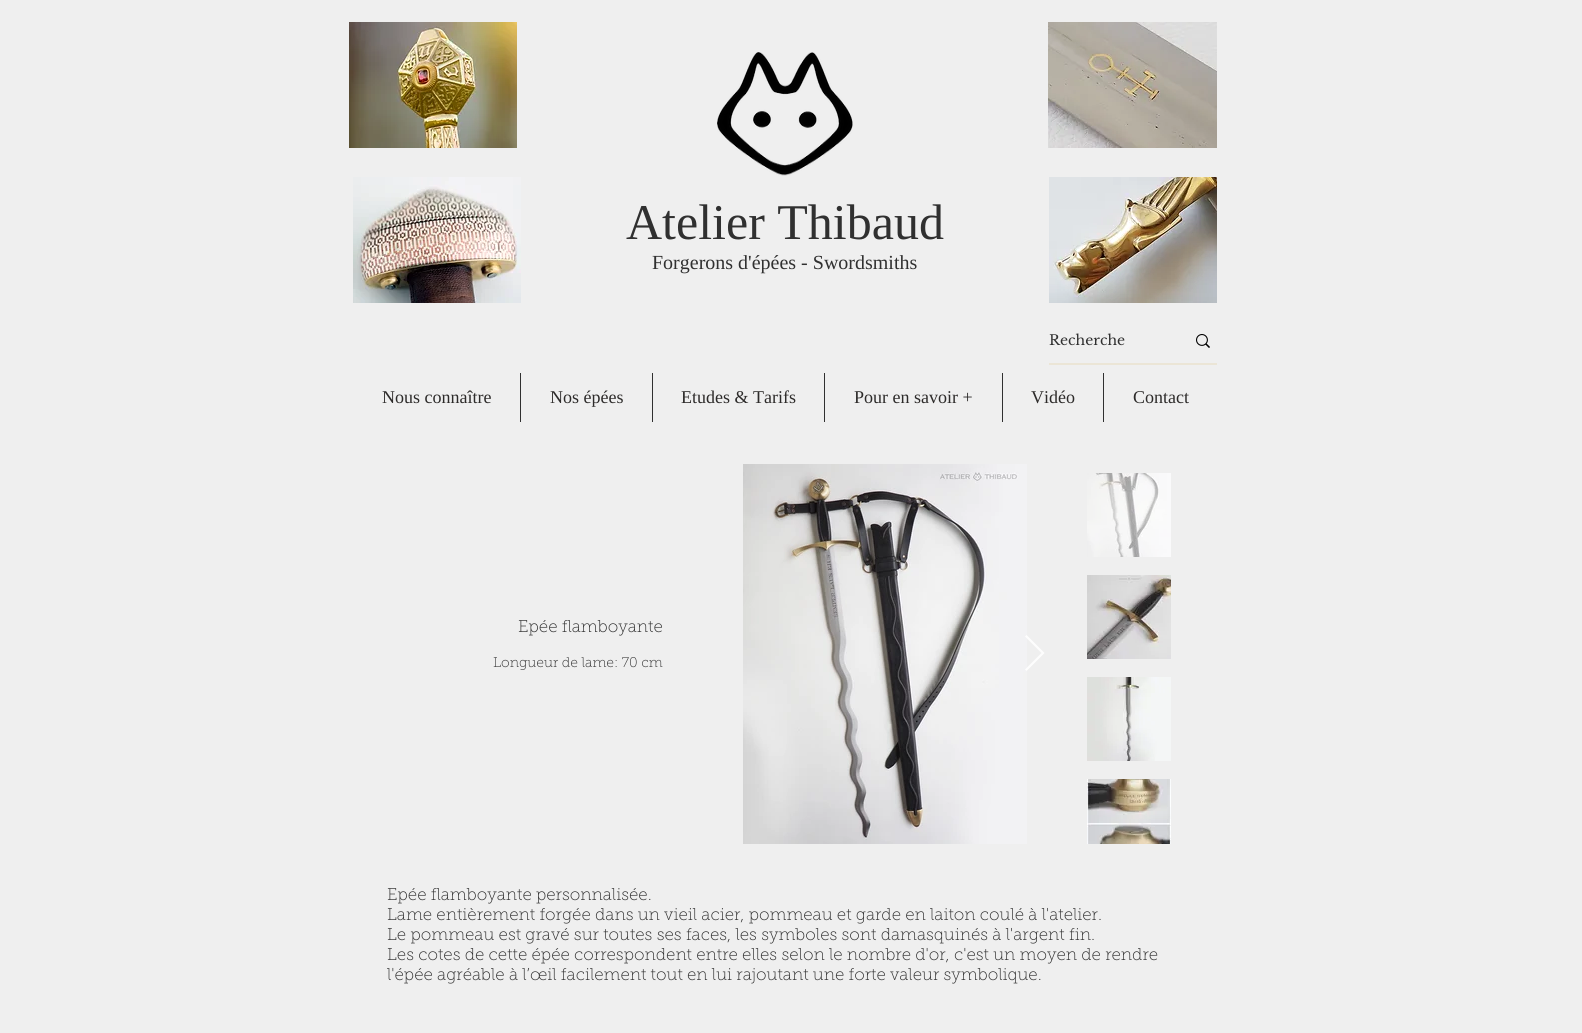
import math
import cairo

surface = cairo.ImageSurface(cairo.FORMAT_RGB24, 1582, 1033)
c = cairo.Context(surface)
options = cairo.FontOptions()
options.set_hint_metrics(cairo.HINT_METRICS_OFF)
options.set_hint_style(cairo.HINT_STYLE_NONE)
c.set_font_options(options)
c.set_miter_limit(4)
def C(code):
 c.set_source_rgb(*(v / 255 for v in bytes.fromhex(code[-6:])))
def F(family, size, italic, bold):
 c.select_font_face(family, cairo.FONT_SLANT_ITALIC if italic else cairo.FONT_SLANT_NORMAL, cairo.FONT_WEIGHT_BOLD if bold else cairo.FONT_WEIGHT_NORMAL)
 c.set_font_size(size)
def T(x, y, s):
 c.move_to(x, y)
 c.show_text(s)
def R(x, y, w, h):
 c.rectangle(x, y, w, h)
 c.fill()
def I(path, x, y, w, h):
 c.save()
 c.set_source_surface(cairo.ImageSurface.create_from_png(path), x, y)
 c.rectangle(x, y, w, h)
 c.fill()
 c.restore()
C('efefef')
c.paint()
I('1.png',349,22,168,126)
I('2.png',717,52,136,124)
I('3.png',1048,22,169,126)
I('4.png',353,177,168,126)
F('Liberation Serif',50,0,0)
C('303030')
T(626,239,'Atelier Thibaud')
F('Liberation Serif',20,0,0)
T(652,269,'Forgerons d\'épées - Swordsmiths')
I('5.png',1049,177,168,126)
C('ebe5d6')
R(1049,363,168,2)
F('Libre Baskerville',14,0,0)
C('303030')
T(1049,345,'Recherche')
I('6.png',1196,334,14,14)
F('Liberation Serif',18,0,0)
C('2d2b2a')
T(382,403,'Nous connaître')
C('303030')
R(520,373,1,49)
C('2d2b2a')
T(550,403,'Nos épées')
C('303030')
R(652,373,1,49)
C('2d2b2a')
T(681,403,'Etudes & Tarifs')
C('303030')
R(824,373,1,49)
C('2d2b2a')
T(854,403,'Pour en savoir +')
C('303030')
R(1002,373,1,49)
C('2d2b2a')
T(1031,403,'Vidéo')
C('303030')
R(1103,373,1,49)
C('2d2b2a')
T(1133,403,'Contact')
F('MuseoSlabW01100 Thin',17,0,0)
C('303030')
T(518,632,'Epée flamboyante')
F('MuseoSlabW01100 Thin',14,0,0)
T(493,667,'Longueur de lame: 70 cm')
I('7.png',743,464,284,380)
c.set_source_rgba(1,1,1,0.9)
c.new_path()
c.move_to(1025,636.5)
c.line_to(1026.5,635)
c.line_to(1044.5,653)
c.line_to(1026.5,671)
c.line_to(1025,669.5)
c.line_to(1041.5,653)
c.close_path()
c.fill()
I('8.png',1087,473,84,84)
I('9.png',1087,575,84,84)
I('10.png',1087,677,84,84)
I('11.png',1087,779,84,65)
F('MuseoSlabW01100 Thin',17,0,0)
C('303030')
T(387,900,'Epée flamboyante personnalisée.')
T(387,920,'Lame entièrement forgée dans un vieil acier, pommeau et garde en laiton coulé à l\'atelier.')
T(387,940,'Le pommeau est gravé sur toutes ses faces, les symboles sont damasquinés à l\'argent fin.')
T(387,960,'Les cotes de cette épée correspondent entre elles selon le nombre d\'or, c\'est un moyen de rendre')
T(387,980,'l\'épée agréable à l’œil facilement tout en lui rajoutant une forte valeur symbolique.')
surface.write_to_png('o.png')
